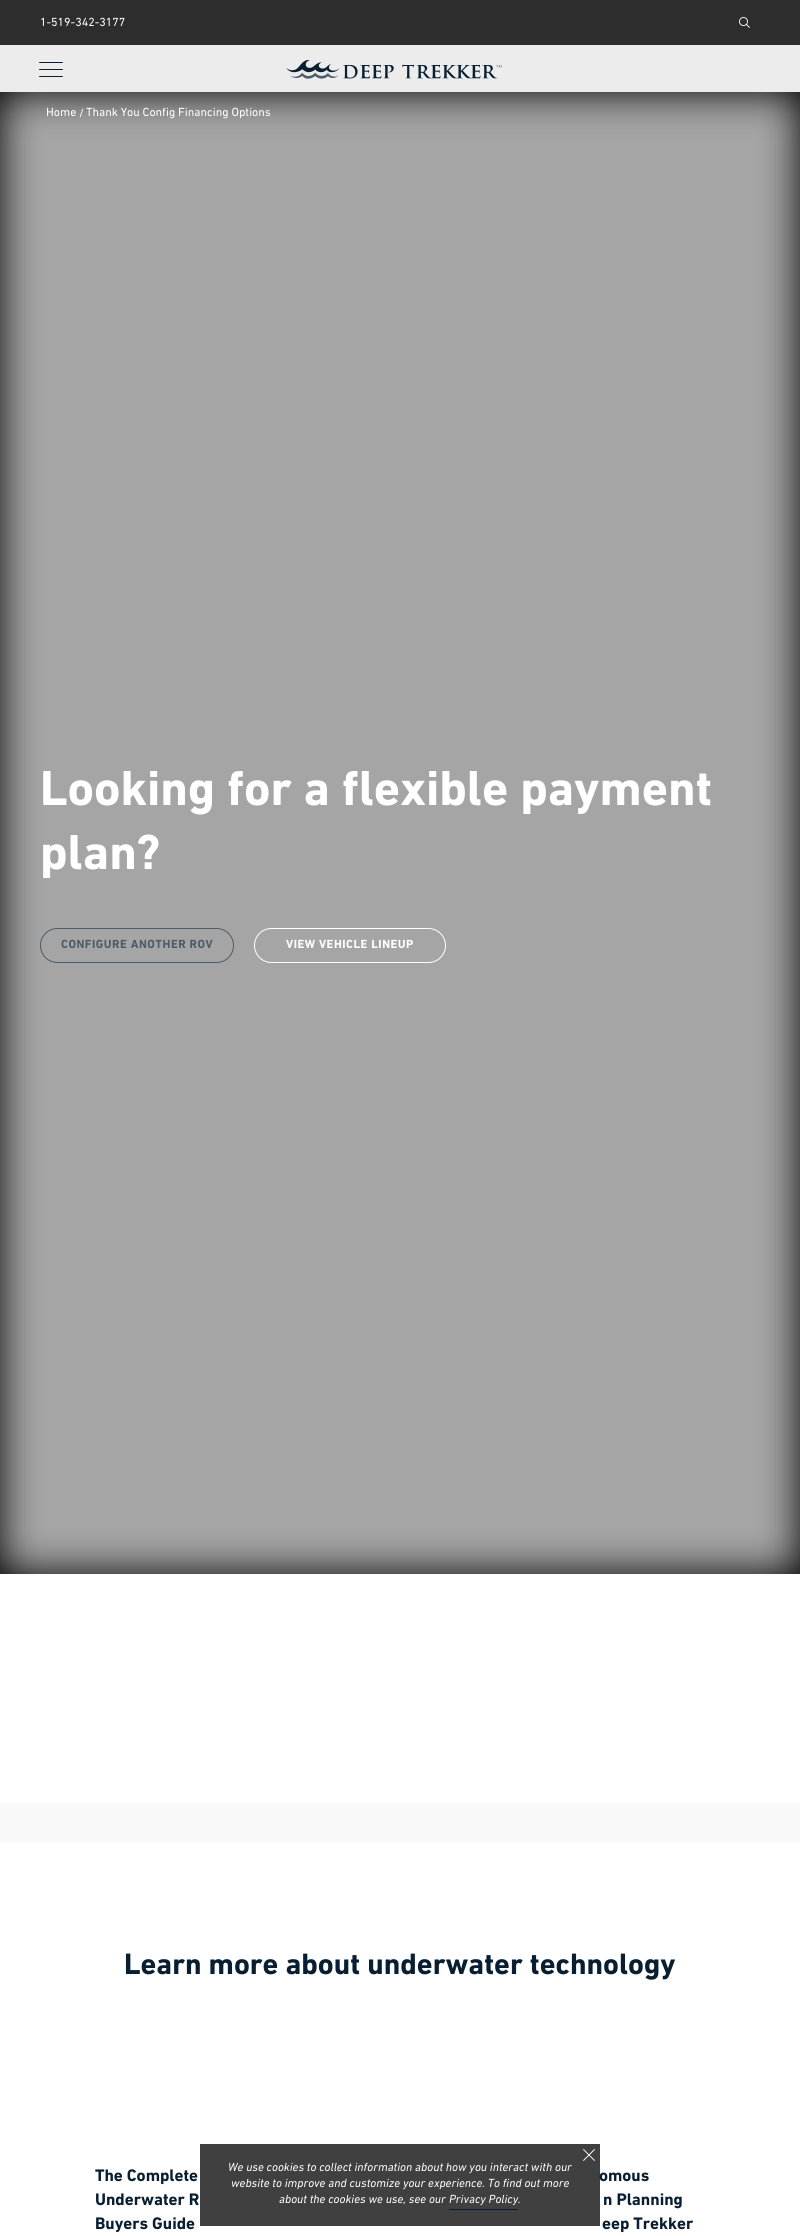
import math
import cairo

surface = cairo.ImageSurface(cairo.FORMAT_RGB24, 800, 2236)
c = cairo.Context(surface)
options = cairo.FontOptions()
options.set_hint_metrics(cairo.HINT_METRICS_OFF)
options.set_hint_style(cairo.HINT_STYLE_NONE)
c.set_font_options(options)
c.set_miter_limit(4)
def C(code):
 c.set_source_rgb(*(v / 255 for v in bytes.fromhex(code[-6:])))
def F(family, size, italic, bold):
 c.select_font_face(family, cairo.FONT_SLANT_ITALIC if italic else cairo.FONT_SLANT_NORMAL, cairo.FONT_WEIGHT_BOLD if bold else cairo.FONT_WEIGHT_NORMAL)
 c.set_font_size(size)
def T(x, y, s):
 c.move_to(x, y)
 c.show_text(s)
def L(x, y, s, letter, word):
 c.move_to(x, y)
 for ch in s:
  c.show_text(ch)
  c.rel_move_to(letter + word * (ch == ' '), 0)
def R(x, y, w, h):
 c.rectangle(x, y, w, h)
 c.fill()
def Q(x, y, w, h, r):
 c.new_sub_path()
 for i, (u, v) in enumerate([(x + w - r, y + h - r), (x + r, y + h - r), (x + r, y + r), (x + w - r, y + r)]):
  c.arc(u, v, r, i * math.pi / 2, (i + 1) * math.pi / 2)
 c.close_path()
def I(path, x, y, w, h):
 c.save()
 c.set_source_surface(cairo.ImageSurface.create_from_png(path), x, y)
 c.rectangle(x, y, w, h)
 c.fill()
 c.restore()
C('ffffff')
c.paint()
C('2d2d2d')
R(0,0,800,45)
F('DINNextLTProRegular',12,0,0)
C('ffffff')
T(40,26,'1-519-342-3177')
I('1.png',739,17,11,11)
C('ececec')
R(0,45,800,47)
C('091f31')
Q(39,62,24,1,.5)
c.fill()
Q(39,69,24,1,.5)
c.fill()
Q(39,76,24,1,.5)
c.fill()
I('2.png',286,60,216,19)
C('000000')
R(0,92,800,1482)
I('3.png',0,92,800,1482)
C('ffffff')
T(46,116,'Home')
T(79,117,'/')
T(86,116,'Thank You Config Financing Options')
F('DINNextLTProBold',50,0,0)
T(40,805,'Looking for a flexible payment')
T(40,869,'plan?')
Q(40.5,928.5,193,34,17)
C('4c5c68')
c.set_line_width(1)
c.stroke()
F('DINNextLTProBold',12,0,0)
L(61,948,'CONFIGURE ANOTHER ROV',.5,0)
Q(254.5,928.5,191,34,17)
C('ffffff')
c.stroke()
L(286,948,'VIEW VEHICLE LINEUP',.5,0)
C('f9f9f9')
R(0,1803,800,40)
F('DINNextLTProBold',30,0,0)
C('091f31')
T(124,1974,'Learn more about underwater technology')
F('DINNextLTProBold',17,0,0)
T(95,2181,'The Complete')
T(95,2205,'Underwater R')
T(95,2229,'Buyers Guide')
T(599,2181,'omous')
T(603,2205,'n Planning')
T(602,2229,'eep Trekker')
c.set_source_rgba(0,0,0,0.75)
R(200,2144,400,82)
I('4.png',583,2149,12,12)
F('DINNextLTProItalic',12,0,0)
C('ffffff')
T(228,2171,'We use cookies to collect information about how you interact with our')
T(231,2187,'website to improve and customize your experience. To find out more')
T(279,2203,'about the cookies we use, see our')
T(518,2203,'.')
T(449,2203,'Privacy Policy')
C('091f31')
R(449,2209,69,1)
surface.write_to_png('o.png')
